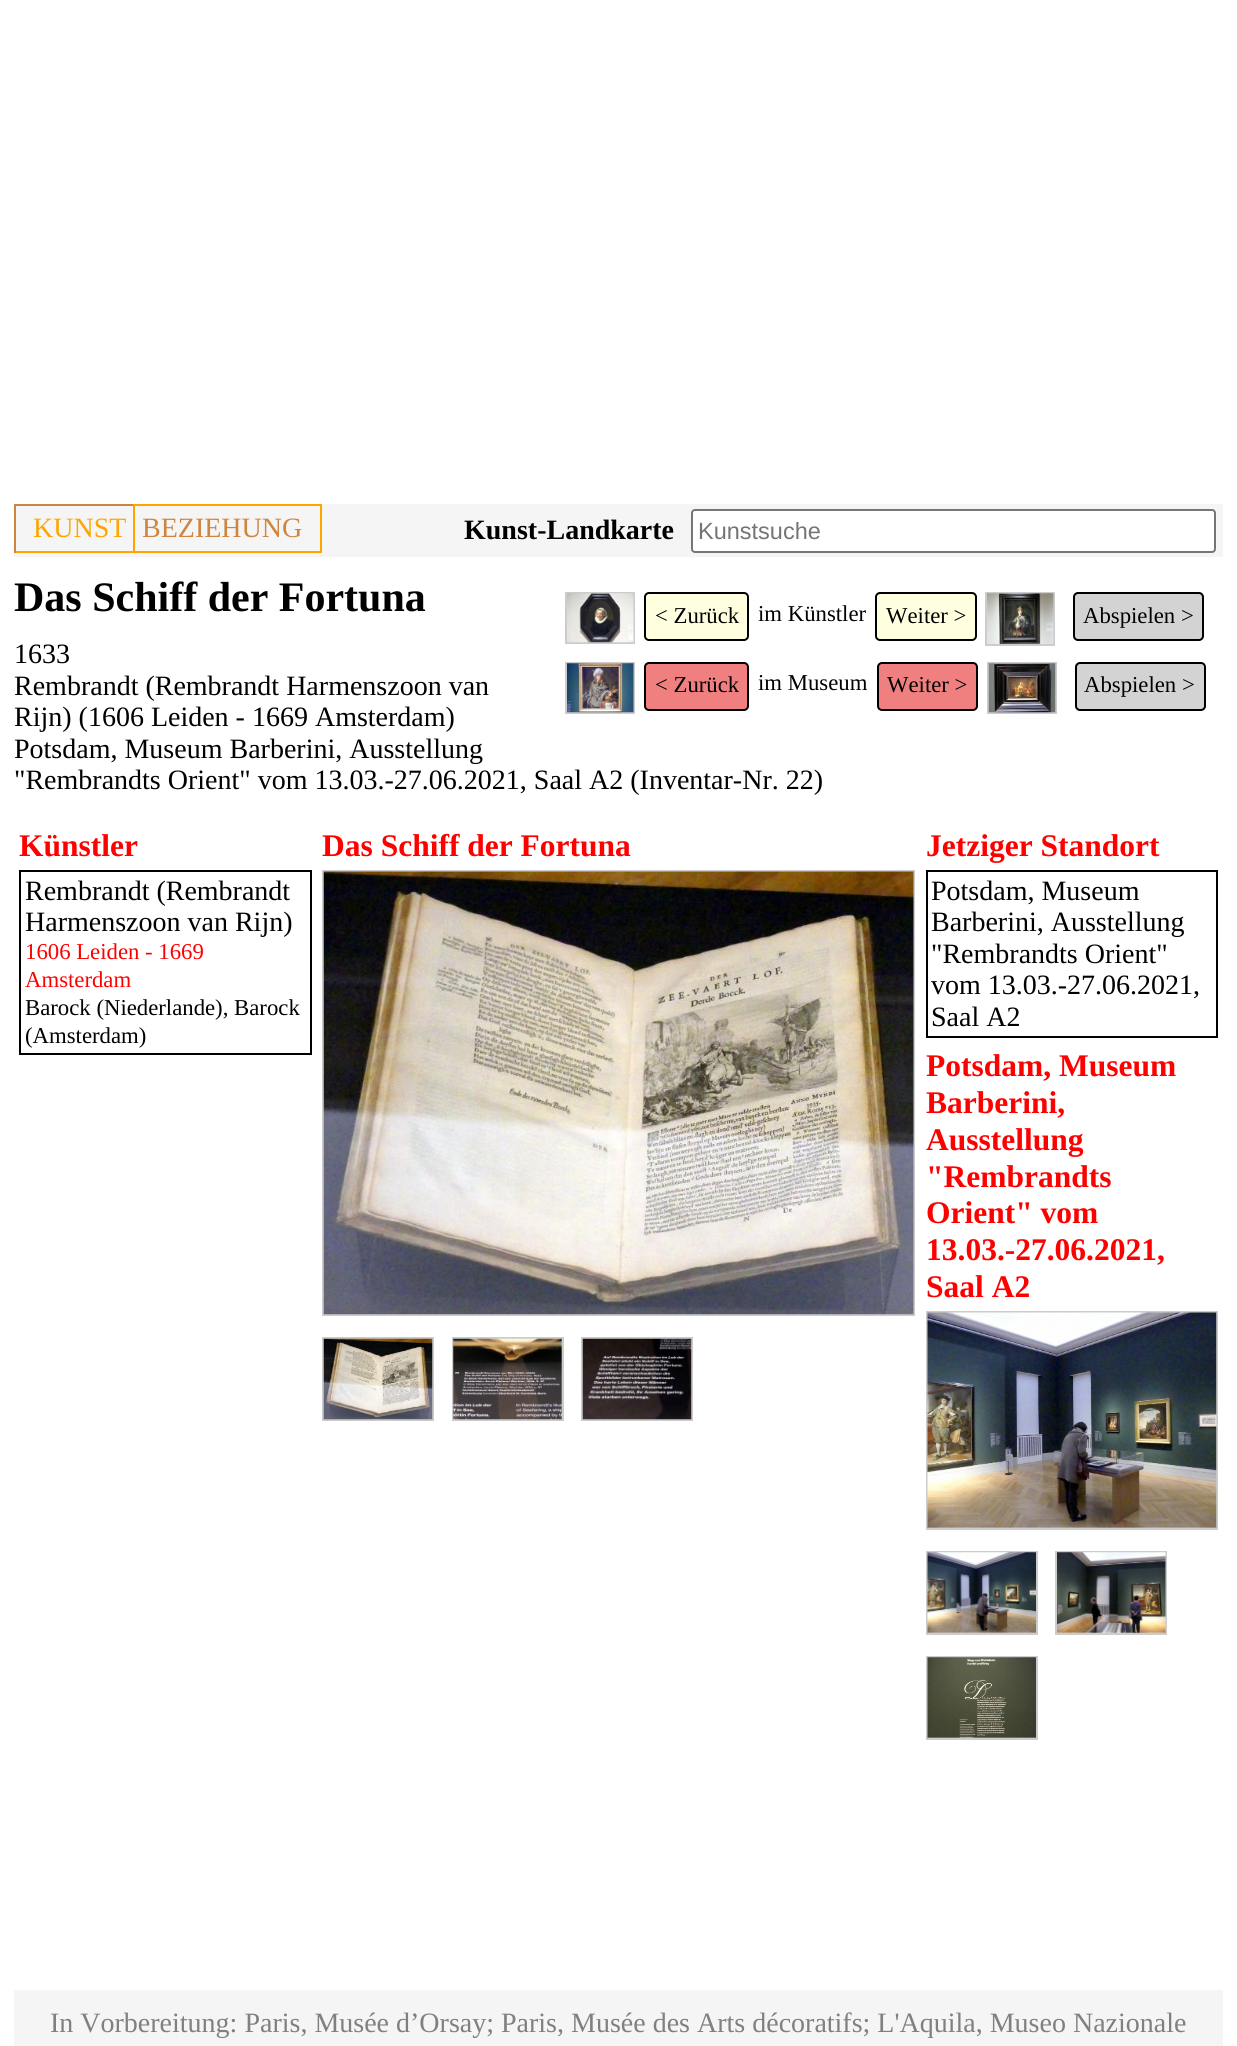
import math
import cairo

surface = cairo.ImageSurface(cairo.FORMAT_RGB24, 1237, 2046)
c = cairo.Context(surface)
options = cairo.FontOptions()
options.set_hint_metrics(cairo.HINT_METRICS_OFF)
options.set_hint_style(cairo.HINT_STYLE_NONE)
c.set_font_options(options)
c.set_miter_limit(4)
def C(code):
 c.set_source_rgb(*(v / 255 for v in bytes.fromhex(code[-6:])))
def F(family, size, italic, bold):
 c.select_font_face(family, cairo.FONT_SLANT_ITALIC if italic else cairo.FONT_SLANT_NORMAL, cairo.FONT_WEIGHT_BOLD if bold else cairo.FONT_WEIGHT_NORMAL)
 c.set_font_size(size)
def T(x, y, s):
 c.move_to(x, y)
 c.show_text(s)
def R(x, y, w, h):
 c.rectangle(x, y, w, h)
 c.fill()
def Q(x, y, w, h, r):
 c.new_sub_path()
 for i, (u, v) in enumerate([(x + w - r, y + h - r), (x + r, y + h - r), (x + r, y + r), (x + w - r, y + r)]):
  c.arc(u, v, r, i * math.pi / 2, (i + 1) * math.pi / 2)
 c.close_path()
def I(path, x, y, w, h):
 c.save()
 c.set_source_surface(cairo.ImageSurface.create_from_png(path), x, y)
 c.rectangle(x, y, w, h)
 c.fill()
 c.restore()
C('ffffff')
c.paint()
C('f5f5f5')
R(14,504,1209,53)
C('cd853f')
R(14,504,121,2)
C('ffa500')
R(133,504,2,49)
R(14,551,121,2)
C('cd853f')
R(14,504,2,49)
F('Liberation Serif',28,0,0)
C('ffa500')
T(33,537,'KUNST')
R(135,504,187,2)
R(320,504,2,49)
R(135,551,187,2)
C('cd853f')
T(142,537,'BEZIEHUNG')
F('Liberation Serif',28,0,1)
C('000000')
T(464,539,'Kunst-Landkarte')
C('ffffff')
Q(692,510,523,42,3)
c.fill_preserve()
C('767676')
c.stroke()
F('Liberation Sans',23.5,0,0)
C('757575')
T(698,539,'Kunstsuche')
F('Liberation Serif',42,0,1)
C('000000')
T(14,611,'Das Schiff der Fortuna')
F('Liberation Serif',28,0,0)
T(14,663,'1633')
T(14,695,'Rembrandt (Rembrandt Harmenszoon van')
T(14,726,'Rijn) (1606 Leiden - 1669 Amsterdam)')
T(14,758,'Potsdam, Museum Barberini, Ausstellung')
T(14,789,'"Rembrandts Orient" vom 13.03.-27.06.2021, Saal A2 (Inventar-Nr. 22)')
c.rectangle(566,593,68,50)
C('cccccc')
c.stroke()
I('1.png',567,593,67,50)
C('ffffe0')
Q(645,593,103,47,4)
c.fill_preserve()
C('000000')
c.stroke()
F('Liberation Serif',22.75,0,0)
T(655,623,'< Zurück')
T(758,621,'im Künstler')
C('ffffe0')
Q(876,593,100,47,4)
c.fill_preserve()
C('000000')
c.stroke()
T(886,623,'Weiter >')
c.rectangle(986,593,68,52)
C('cccccc')
c.stroke()
I('2.png',987,593,67,51)
C('d3d3d3')
Q(1074,593,129,47,4)
c.fill_preserve()
C('000000')
c.stroke()
T(1083,623,'Abspielen >')
c.rectangle(566,663,68,50)
C('cccccc')
c.stroke()
I('3.png',567,663,67,50)
C('f08080')
Q(645,663,103,47,4)
c.fill_preserve()
C('000000')
c.stroke()
T(655,692,'< Zurück')
T(758,690,'im Museum')
C('f08080')
Q(878,663,99,47,4)
c.fill_preserve()
C('000000')
c.stroke()
T(887,692,'Weiter >')
c.rectangle(988,663,68,50)
C('cccccc')
c.stroke()
I('4.png',988,663,68,50)
C('d3d3d3')
Q(1076,663,129,47,4)
c.fill_preserve()
C('000000')
c.stroke()
T(1084,692,'Abspielen >')
F('Liberation Serif',31.5,0,1)
C('ff0000')
T(19,856,'Künstler')
c.rectangle(20,871,291,183)
C('000000')
c.stroke()
F('Liberation Serif',28,0,0)
T(25,900,'Rembrandt (Rembrandt')
T(25,931,'Harmenszoon van Rijn)')
F('Liberation Serif',22.75,0,0)
C('ff0000')
T(25,959,'1606 Leiden - 1669')
T(25,987,'Amsterdam')
C('000000')
T(25,1015,'Barock (Niederlande), Barock')
T(25,1043,'(Amsterdam)')
F('Liberation Serif',31.5,0,1)
C('ff0000')
T(322,856,'Das Schiff der Fortuna')
c.rectangle(323,871,591,444)
C('cccccc')
c.stroke()
I('5.png',323,871,591,444)
c.rectangle(323,1338,110,82)
c.stroke()
I('6.png',323,1338,110,82)
c.rectangle(453,1338,110,82)
c.stroke()
I('7.png',453,1338,109,82)
c.rectangle(582,1338,110,82)
c.stroke()
I('8.png',582,1338,110,82)
C('ff0000')
T(926,856,'Jetziger Standort')
c.rectangle(927,871,290,166)
C('000000')
c.stroke()
F('Liberation Serif',28,0,0)
T(931,900,'Potsdam, Museum')
T(931,931,'Barberini, Ausstellung')
T(931,963,'"Rembrandts Orient"')
T(931,994,'vom 13.03.-27.06.2021,')
T(931,1026,'Saal A2')
F('Liberation Serif',31.5,0,1)
C('ff0000')
T(926,1076,'Potsdam, Museum')
T(926,1113,'Barberini,')
T(926,1150,'Ausstellung')
T(926,1187,'"Rembrandts')
T(926,1223,'Orient" vom')
T(926,1260,'13.03.-27.06.2021,')
T(926,1297,'Saal A2')
c.rectangle(927,1312,290,217)
C('cccccc')
c.stroke()
I('9.png',927,1312,290,216)
c.rectangle(927,1552,110,82)
c.stroke()
I('10.png',927,1552,109,81)
c.rectangle(1056,1552,110,82)
c.stroke()
I('11.png',1057,1552,109,81)
c.rectangle(927,1657,110,82)
c.stroke()
I('12.png',927,1657,109,81)
C('f5f5f5')
R(14,1990,1209,56)
F('Liberation Serif',28,0,0)
C('808080')
T(50,2032,'In Vorbereitung: Paris, Musée d’Orsay; Paris, Musée des Arts décoratifs; L\'Aquila, Museo Nazionale')
surface.write_to_png('o.png')
